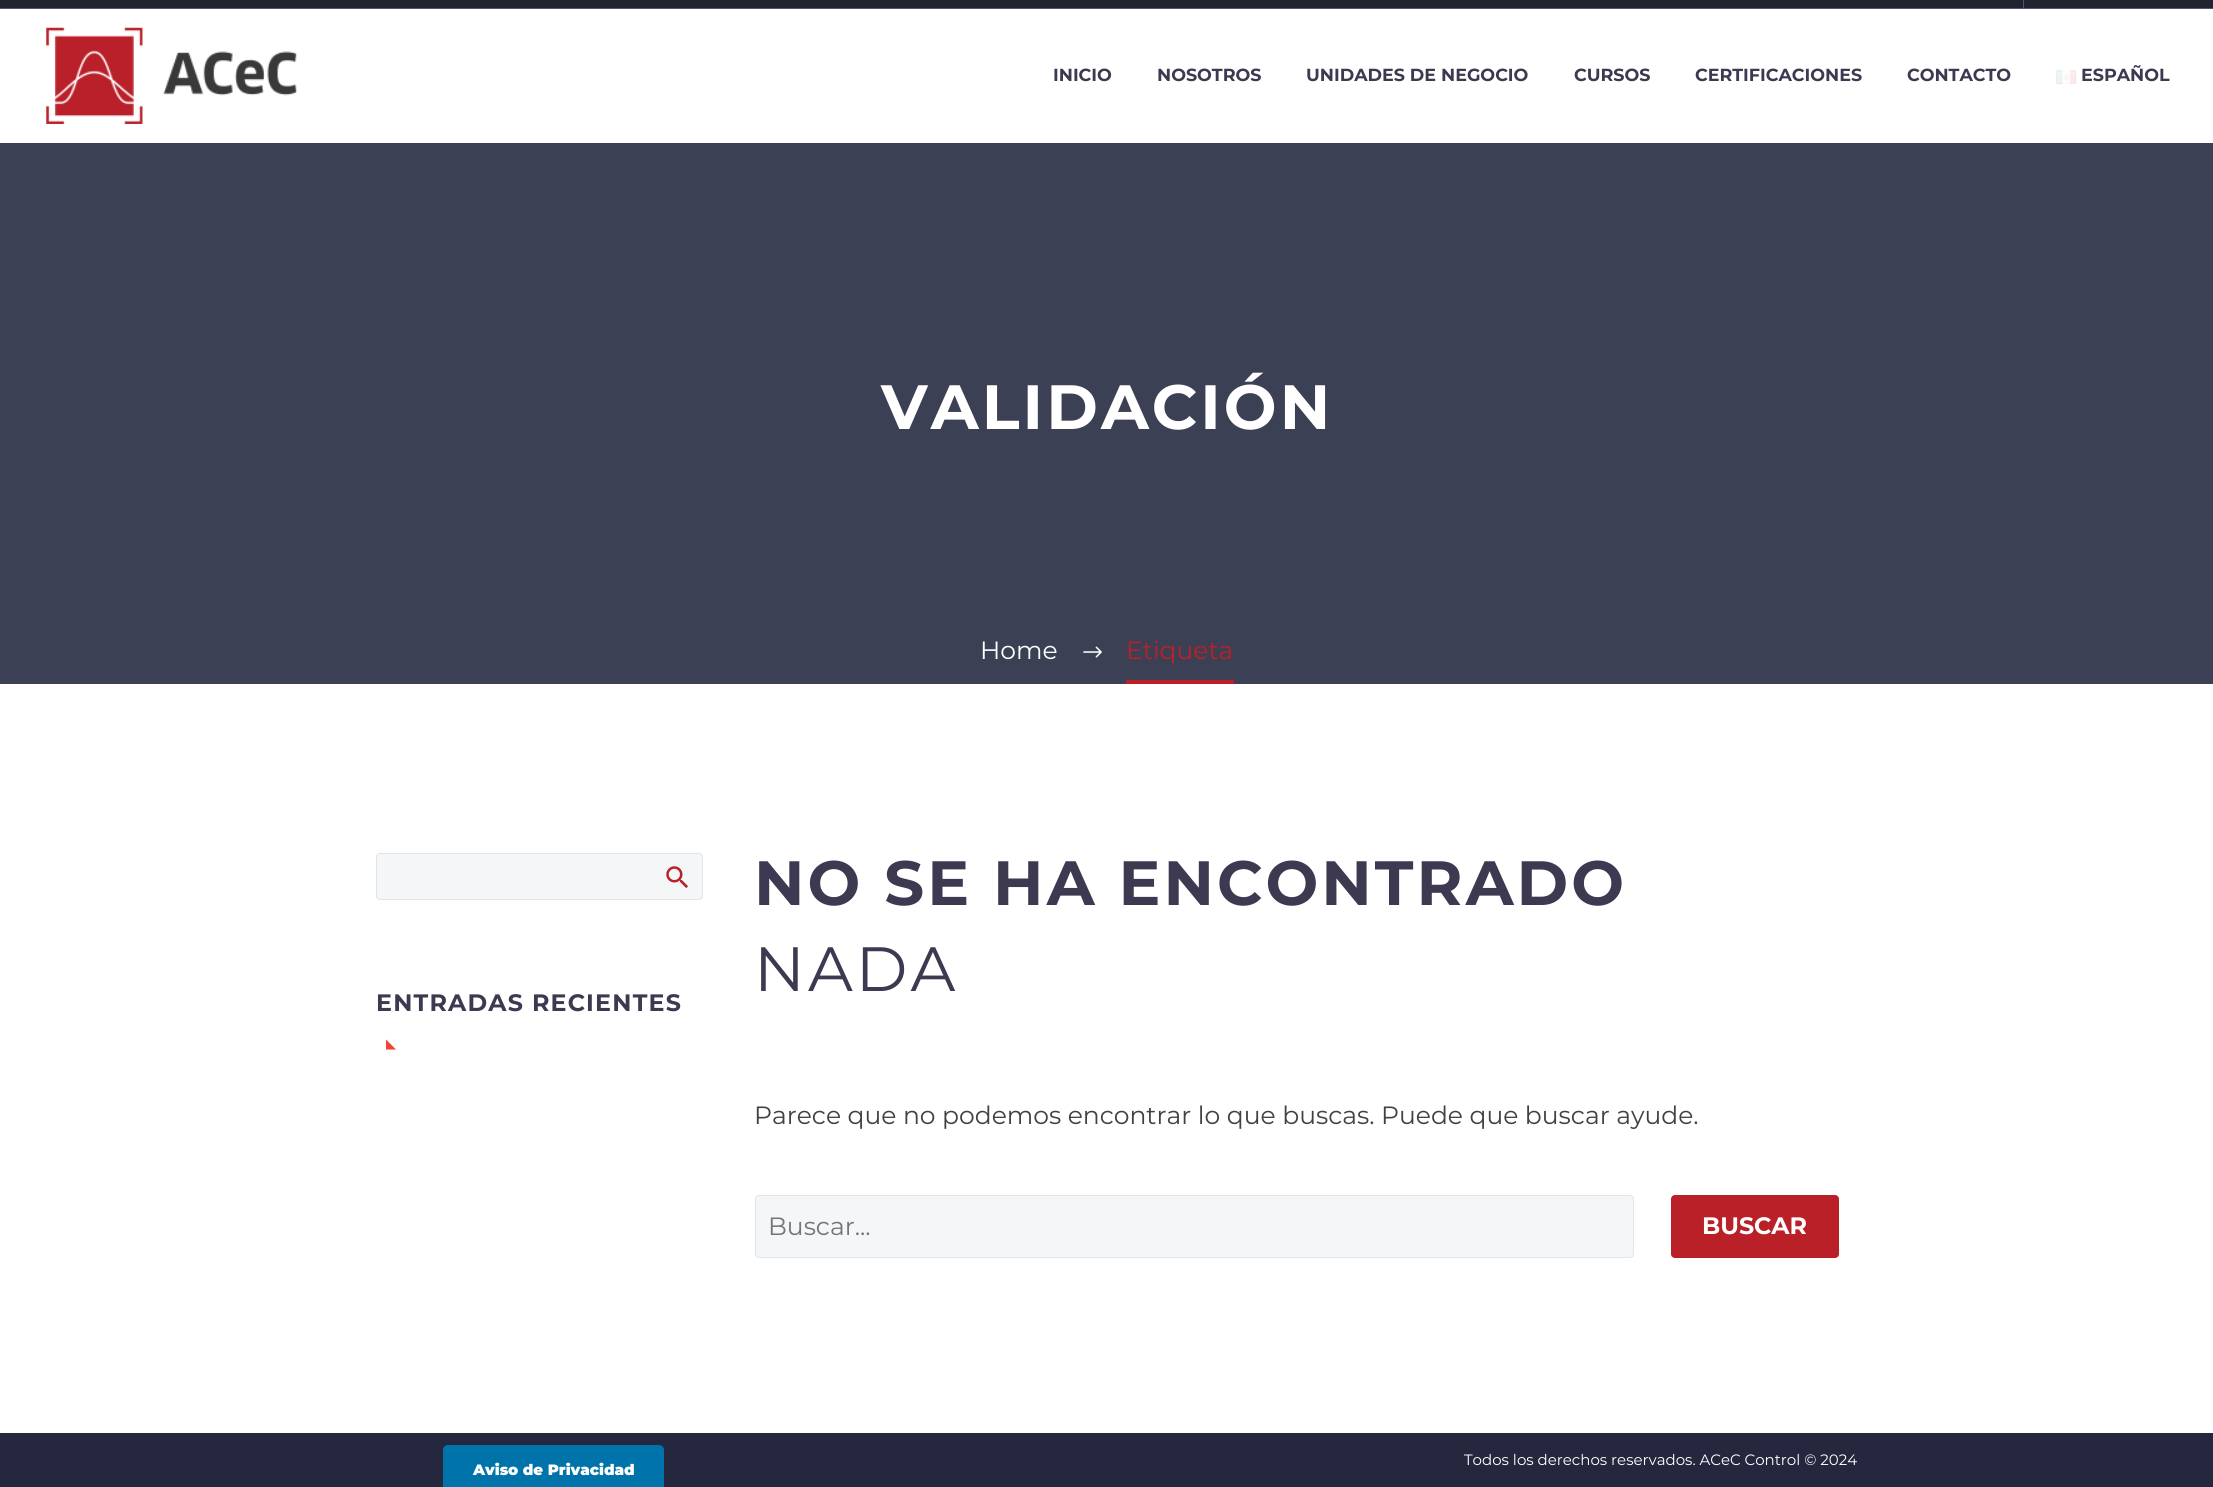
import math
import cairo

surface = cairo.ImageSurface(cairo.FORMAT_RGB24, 2213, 1487)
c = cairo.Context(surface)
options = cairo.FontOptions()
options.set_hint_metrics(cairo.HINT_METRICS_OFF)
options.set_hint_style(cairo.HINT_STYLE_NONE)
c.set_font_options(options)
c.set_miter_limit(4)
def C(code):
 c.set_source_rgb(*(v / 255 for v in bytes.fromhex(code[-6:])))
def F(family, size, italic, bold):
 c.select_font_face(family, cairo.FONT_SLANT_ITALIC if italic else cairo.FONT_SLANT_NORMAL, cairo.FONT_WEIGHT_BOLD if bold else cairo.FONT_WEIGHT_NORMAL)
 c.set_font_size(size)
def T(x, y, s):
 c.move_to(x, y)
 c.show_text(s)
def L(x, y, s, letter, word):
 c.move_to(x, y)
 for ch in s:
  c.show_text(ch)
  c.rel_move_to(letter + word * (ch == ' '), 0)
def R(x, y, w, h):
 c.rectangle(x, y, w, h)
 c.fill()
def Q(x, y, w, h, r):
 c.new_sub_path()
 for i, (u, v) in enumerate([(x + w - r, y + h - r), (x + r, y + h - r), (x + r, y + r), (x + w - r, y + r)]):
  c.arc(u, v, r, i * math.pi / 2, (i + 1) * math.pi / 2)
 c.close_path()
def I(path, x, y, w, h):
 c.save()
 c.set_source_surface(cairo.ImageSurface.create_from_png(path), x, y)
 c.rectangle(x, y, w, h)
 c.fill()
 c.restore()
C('ffffff')
c.paint()
C('212331')
R(0,0,2213,8)
C('51546c')
R(0,8,2213,1)
R(2023,0,1,8)
I('1.png',46,27,251,97)
F('Montserrat',17.5,0,1)
C('3c3950')
T(1053,81,'INICIO')
T(1157,81,'NOSOTROS')
T(1306,81,'UNIDADES DE NEGOCIO')
T(1574,81,'CURSOS')
T(1695,81,'CERTIFICACIONES')
T(1907,81,'CONTACTO')
I('2.png',2056,70,21,14)
T(2081,81,'ESPAÑOL')
C('3b4054')
R(0,143,2213,541)
F('Montserrat',62.5,0,1)
C('ffffff')
L(881,429,'VALIDACIÓN',3.1,0)
F('Montserrat',25,0,0)
T(980,659,'Home')
I('3.png',1083,646,19,12)
C('ba2027')
R(1126,680,108,4)
T(1126,659,'Etiqueta')
C('f4f6f7')
Q(376.5,853.5,326,46,3.5)
c.fill_preserve()
C('dfe5e8')
c.set_line_width(1)
c.stroke()
I('4.png',666,866,22,22)
F('Montserrat',23.75,0,1)
C('3c3950')
L(376,1011,'ENTRADAS RECIENTES',1.2,0)
C('f44336')
c.new_path()
c.move_to(386,1039.5)
c.line_to(386,1049.5)
c.line_to(396,1049.5)
c.close_path()
c.fill()
F('Montserrat',62.5,0,1)
C('3c3950')
L(754,905,'NO SE HA ENCONTRADO',3.1,0)
F('Montserrat',62.5,0,0)
L(754,991,'NADA',3.1,0)
F('Montserrat',25,0,0)
C('414042')
T(754,1124,'Parece que no podemos encontrar lo que buscas. Puede que buscar ayude.')
C('f4f6f7')
Q(755.5,1195.5,878,62,3.5)
c.fill_preserve()
C('dfe5e8')
c.stroke()
C('757575')
T(768,1235,'Buscar...')
C('ba2027')
Q(1671,1195,168,63,4)
c.fill()
F('Montserrat',23.75,0,1)
C('ffffff')
T(1702,1234,'BUSCAR')
C('25273f')
R(0,1433,2213,54)
F('Montserrat',15,0,0)
C('ffffff')
T(1464,1465,'Todos los derechos reservados. ACeC Control © 2024')
C('0073aa')
Q(443,1445,221,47,5)
c.fill()
F('Montserrat Black',15,0,0)
C('ffffff')
T(473,1475,'Aviso de Privacidad')
surface.write_to_png('o.png')
